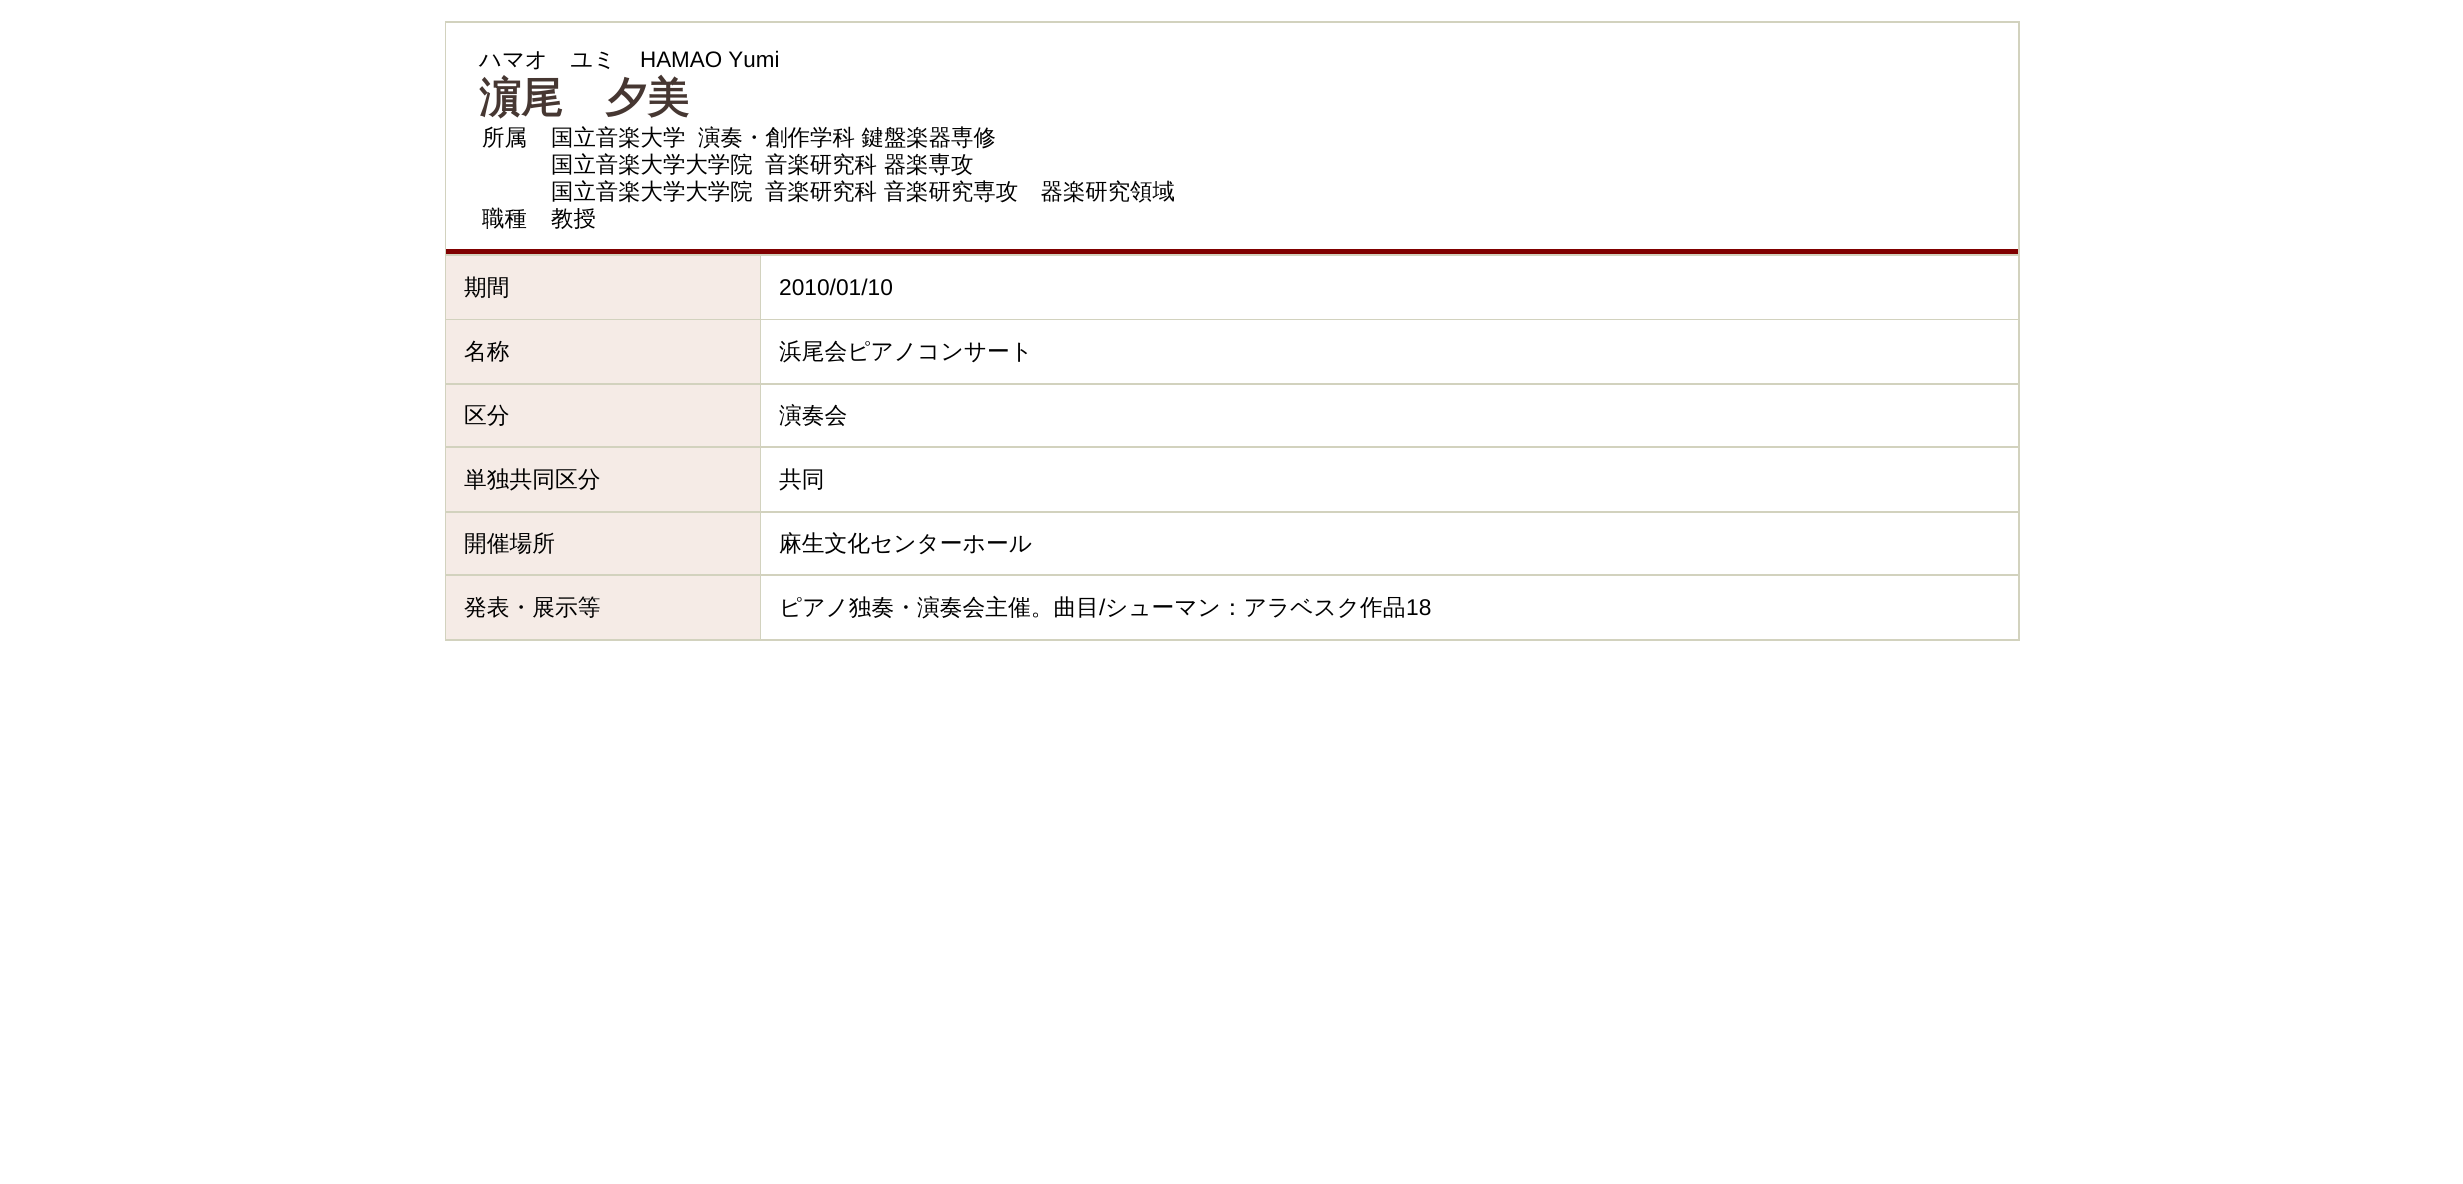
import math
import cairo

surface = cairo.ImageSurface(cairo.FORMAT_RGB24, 2463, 1184)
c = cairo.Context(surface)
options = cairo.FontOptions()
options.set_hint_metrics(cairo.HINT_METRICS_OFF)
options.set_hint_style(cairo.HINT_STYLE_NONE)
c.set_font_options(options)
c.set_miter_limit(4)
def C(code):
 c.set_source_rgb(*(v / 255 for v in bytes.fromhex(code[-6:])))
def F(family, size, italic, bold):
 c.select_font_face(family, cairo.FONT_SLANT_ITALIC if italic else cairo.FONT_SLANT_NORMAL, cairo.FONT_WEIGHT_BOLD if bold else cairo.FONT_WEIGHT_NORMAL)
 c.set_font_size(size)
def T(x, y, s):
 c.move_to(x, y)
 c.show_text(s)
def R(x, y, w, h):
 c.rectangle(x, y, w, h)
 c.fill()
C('ffffff')
c.paint()
C('d2d2be')
R(445,21,1575,620)
C('ffffff')
R(446,23,1572,226)
C('800000')
R(446,249,1572,5)
F('WenQuanYi Zen Hei Medium',22.4,0,0)
C('000000')
T(479,67,'ハマオ　ユミ')
F('Liberation Sans',22.4,0,0)
T(640,67,'HAMAO Yumi')
F('WenQuanYi Zen Hei',42,0,1)
C('463732')
T(479,112,'濵尾　夕美')
F('WenQuanYi Zen Hei Medium',22.4,0,0)
C('000000')
T(482,145,'所属')
T(551,145,'国立音楽大学')
T(698,145,'演奏・創作学科 鍵盤楽器専修')
T(551,172,'国立音楽大学大学院')
T(765,172,'音楽研究科 器楽専攻')
T(551,199,'国立音楽大学大学院')
T(765,199,'音楽研究科 音楽研究専攻　器楽研究領域')
T(482,226,'職種')
T(551,226,'教授')
C('f5ebe6')
R(446,256,314,63)
F('WenQuanYi Zen Hei Medium',22.75,0,0)
C('000000')
T(464,295,'期間')
C('ffffff')
R(761,256,1257,63)
F('Liberation Sans',22.75,0,0)
C('000000')
T(779,295,'2010/01/10')
C('f5ebe6')
R(446,320,314,63)
F('WenQuanYi Zen Hei Medium',22.75,0,0)
C('000000')
T(464,359,'名称')
C('ffffff')
R(761,320,1257,63)
C('000000')
T(779,359,'浜尾会ピアノコンサート')
C('f5ebe6')
R(446,385,314,61)
C('000000')
T(464,423,'区分')
C('ffffff')
R(761,385,1257,61)
C('000000')
T(779,423,'演奏会')
C('f5ebe6')
R(446,448,314,63)
C('000000')
T(464,487,'単独共同区分')
C('ffffff')
R(761,448,1257,63)
C('000000')
T(779,487,'共同')
C('f5ebe6')
R(446,513,314,61)
C('000000')
T(464,551,'開催場所')
C('ffffff')
R(761,513,1257,61)
C('000000')
T(779,551,'麻生文化センターホール')
C('f5ebe6')
R(446,576,314,63)
C('000000')
T(464,615,'発表・展示等')
C('ffffff')
R(761,576,1257,63)
C('000000')
T(779,615,'ピアノ独奏・演奏会主催。曲目')
F('Liberation Sans',22.75,0,0)
T(1099,615,'/')
F('WenQuanYi Zen Hei Medium',22.75,0,0)
T(1105,615,'シューマン：アラベスク作品')
F('Liberation Sans',22.75,0,0)
T(1406,615,'18')
surface.write_to_png('o.png')
